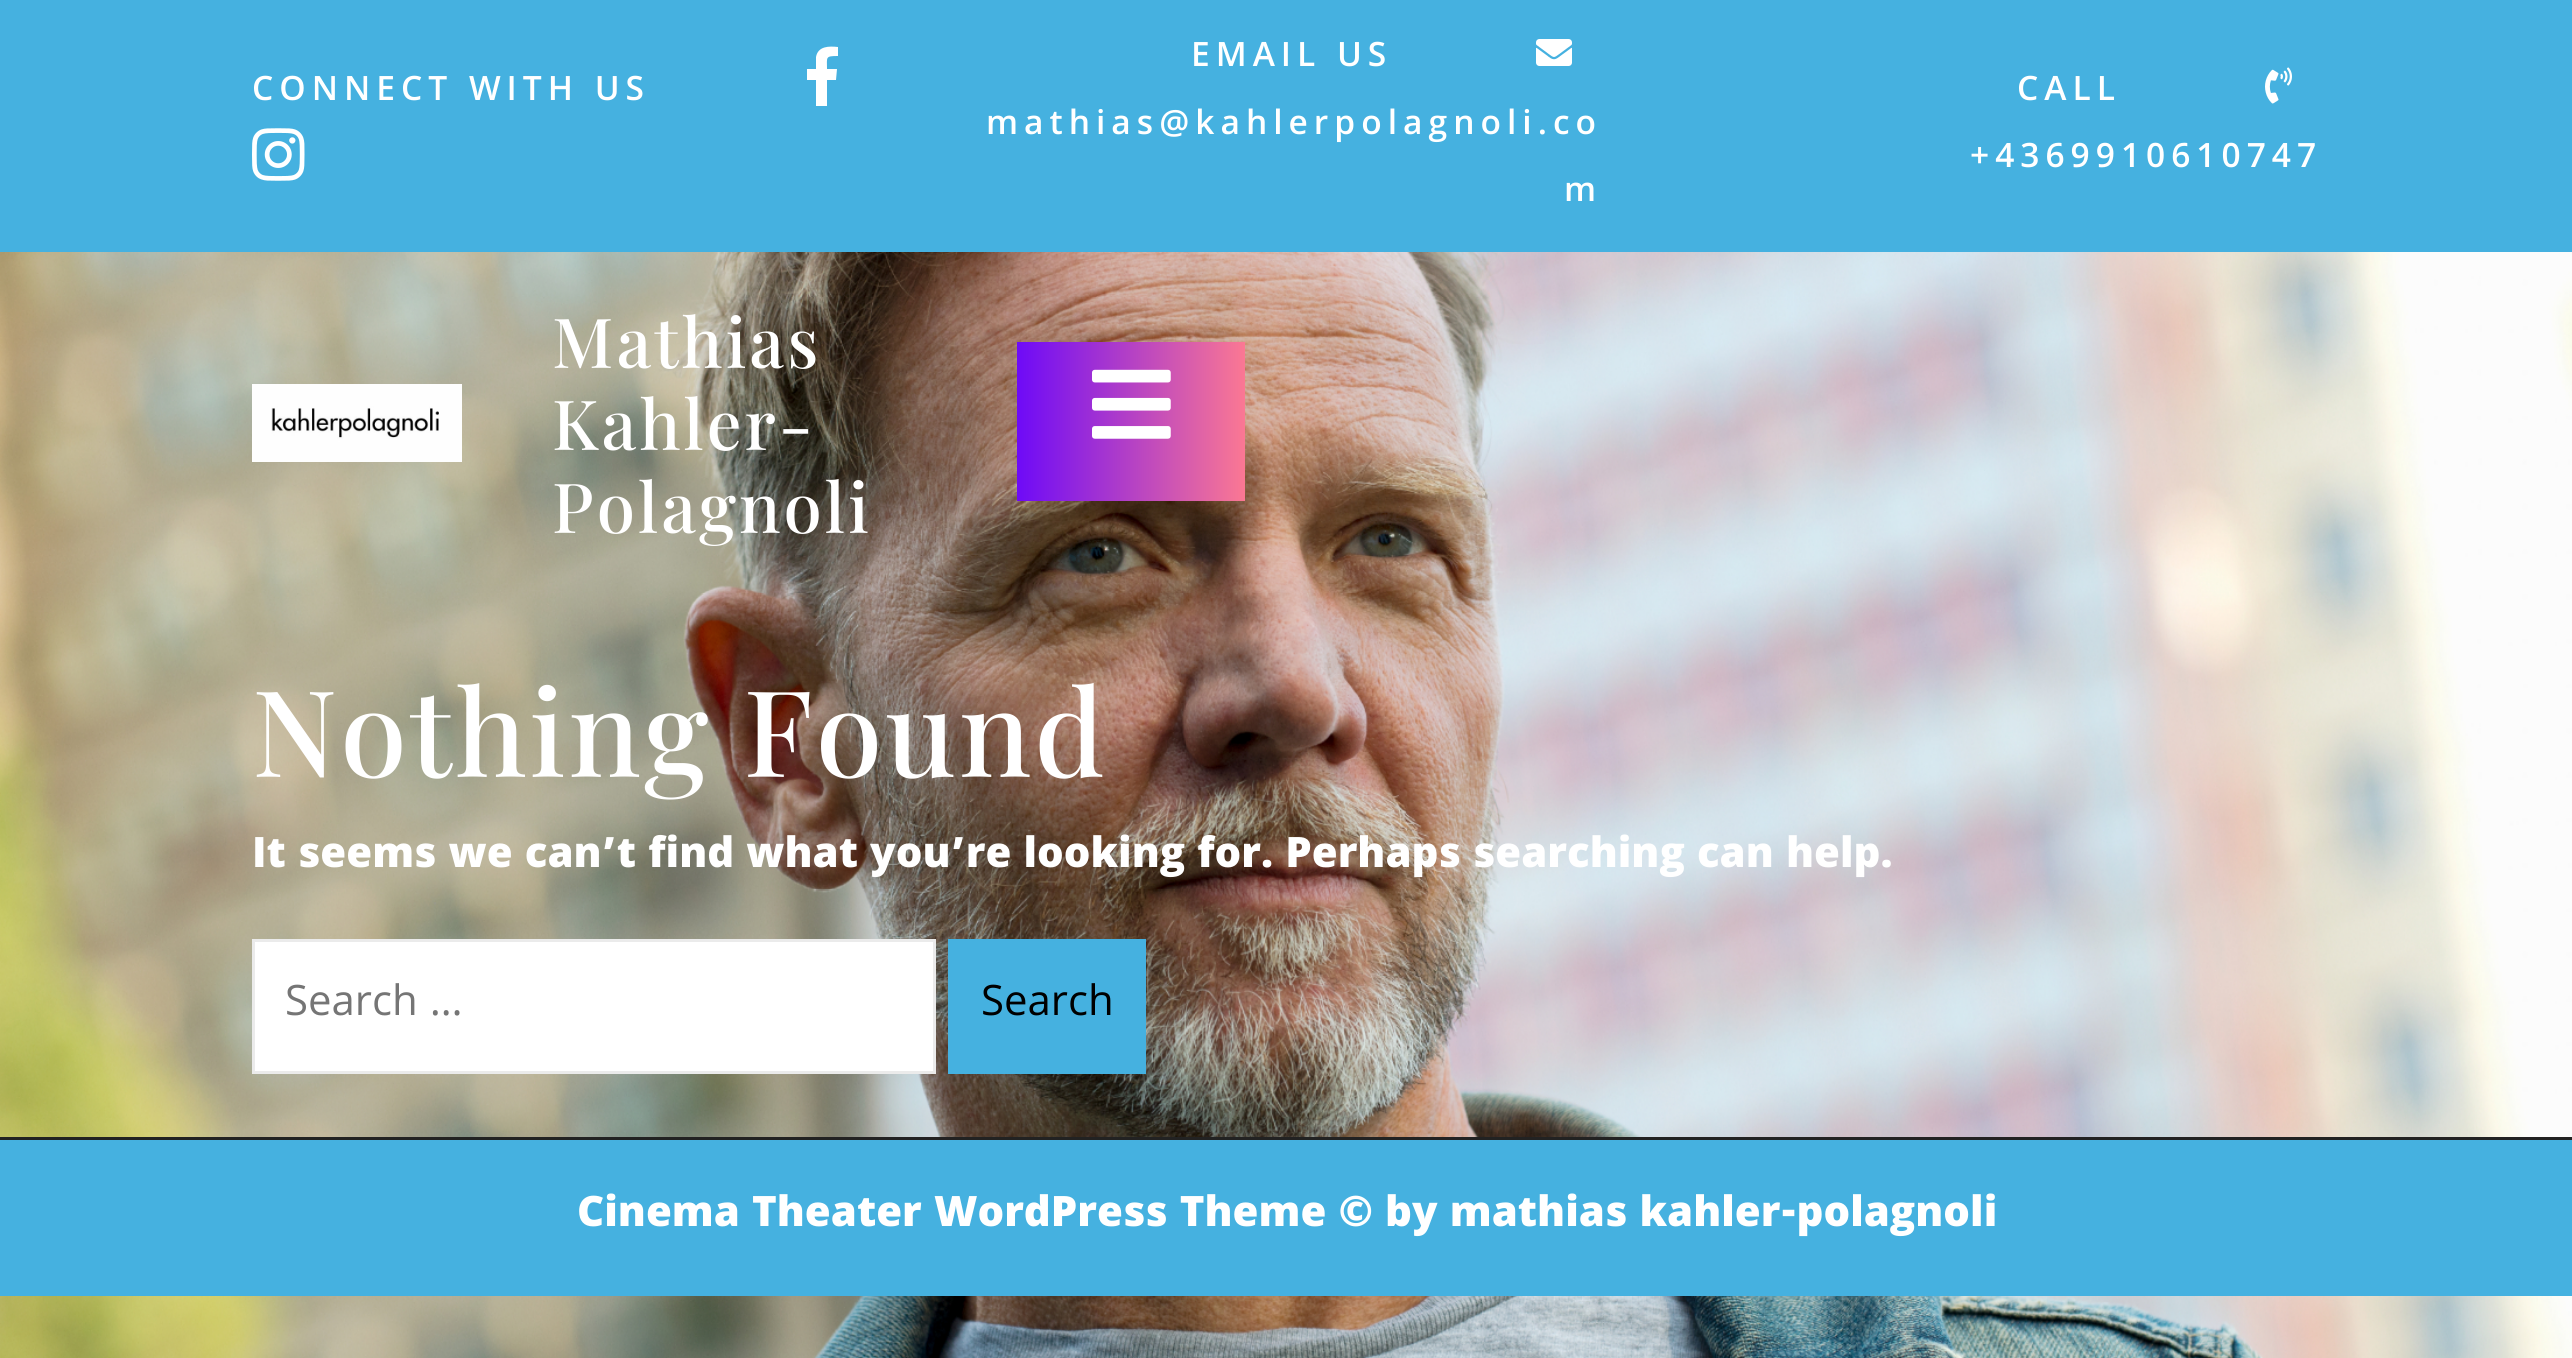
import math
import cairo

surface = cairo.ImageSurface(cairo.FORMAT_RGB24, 2572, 1358)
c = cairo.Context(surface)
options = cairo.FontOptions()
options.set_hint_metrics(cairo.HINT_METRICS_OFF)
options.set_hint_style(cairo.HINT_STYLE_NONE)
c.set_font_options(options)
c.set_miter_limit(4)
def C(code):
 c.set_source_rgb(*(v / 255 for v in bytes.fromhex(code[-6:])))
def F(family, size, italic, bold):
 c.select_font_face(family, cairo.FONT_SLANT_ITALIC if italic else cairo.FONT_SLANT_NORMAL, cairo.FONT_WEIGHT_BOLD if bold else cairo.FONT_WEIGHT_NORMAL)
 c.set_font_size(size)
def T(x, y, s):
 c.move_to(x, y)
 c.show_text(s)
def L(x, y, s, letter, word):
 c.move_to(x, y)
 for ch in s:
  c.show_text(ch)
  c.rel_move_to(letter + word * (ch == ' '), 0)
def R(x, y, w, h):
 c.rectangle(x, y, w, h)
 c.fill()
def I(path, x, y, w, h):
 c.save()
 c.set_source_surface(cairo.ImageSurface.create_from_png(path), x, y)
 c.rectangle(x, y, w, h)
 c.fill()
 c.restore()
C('ffffff')
c.paint()
I('1.png',0,252,2572,1106)
C('45b1e0')
R(0,0,2572,252)
F('Khula SemiBold',36,0,0)
C('ffffff')
L(252,100,'CONNECT WITH US',6,0)
c.new_path()
c.move_to(816,106)
c.line_to(816,80)
c.line_to(807,80)
c.line_to(807,69)
c.line_to(816,69)
c.line_to(816,57)
c.curve_to(818,46,829,46,838,47)
c.line_to(838,56)
c.curve_to(825,56,827,57,827,69)
c.line_to(837,69)
c.line_to(836,80)
c.line_to(827,80)
c.line_to(827,106)
c.close_path()
c.fill()
I('2.png',252,128,53,53)
L(1191,66,'EMAIL US',6,0)
I('3.png',1536,39,36,27)
L(986,134,'mathias@kahlerpolagnoli.co',6,0)
L(1564,201,'m',6,0)
L(2017,100,'CALL',6,0)
I('4.png',2265,67,27,37)
L(1970,167,'+4369910610747',6,0)
I('5.png',252,384,210,78)
F('Playfair Display Medium',69,0,0)
L(552,368,'Mathias',3,0)
L(552,450,'Kahler-',3,0)
L(552,533,'Polagnoli',3,0)
gradient = cairo.LinearGradient(1017,422,1245,422)
gradient.add_color_stop_rgba(0,0.431,0.039,0.969,1)
gradient.add_color_stop_rgba(1,0.984,0.471,0.576,1)
c.set_source(gradient)
R(1017,342,228,159)
I('6.png',1092,369,79,70)
F('Playfair Display Medium',120,0,0)
C('ffffff')
L(252,777,'Nothing Found',3,0)
F('Khula ExtraBold',45,0,0)
T(252,867,'It seems we can’t find what you’re looking for. Perhaps searching can help.')
c.rectangle(253.5,940.5,681,132)
c.fill_preserve()
C('ebebeb')
c.set_line_width(3)
c.stroke()
F('Khula',45,0,0)
C('757575')
T(285,1015,'Search …')
C('45b1e0')
R(948,939,198,135)
C('000000')
T(981,1015,'Search')
C('222222')
R(0,1137,2572,3)
C('45b1e0')
R(0,1140,2572,156)
F('Khula ExtraBold',45,0,0)
C('ffffff')
T(577,1226,'Cinema Theater WordPress Theme © by mathias kahler-polagnoli')
surface.write_to_png('o.png')
